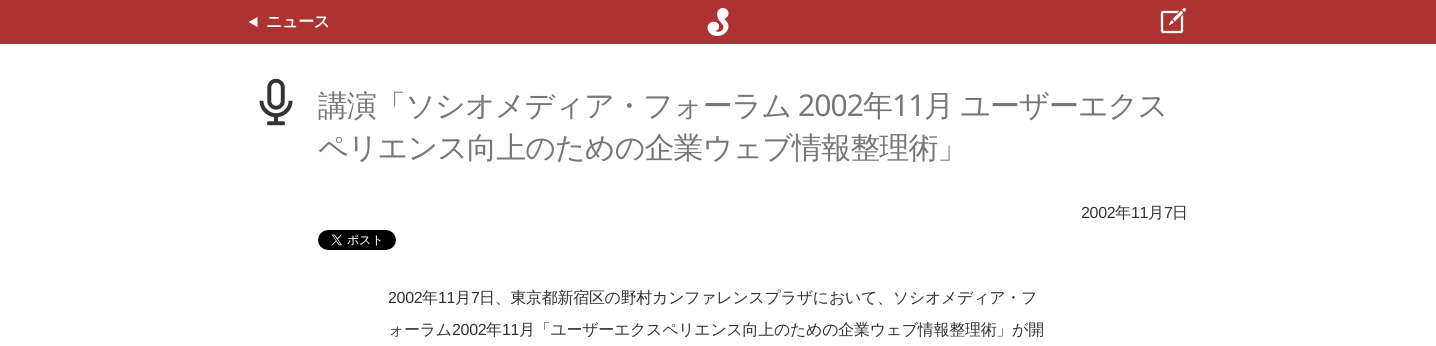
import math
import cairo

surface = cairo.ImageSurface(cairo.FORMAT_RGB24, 1436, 346)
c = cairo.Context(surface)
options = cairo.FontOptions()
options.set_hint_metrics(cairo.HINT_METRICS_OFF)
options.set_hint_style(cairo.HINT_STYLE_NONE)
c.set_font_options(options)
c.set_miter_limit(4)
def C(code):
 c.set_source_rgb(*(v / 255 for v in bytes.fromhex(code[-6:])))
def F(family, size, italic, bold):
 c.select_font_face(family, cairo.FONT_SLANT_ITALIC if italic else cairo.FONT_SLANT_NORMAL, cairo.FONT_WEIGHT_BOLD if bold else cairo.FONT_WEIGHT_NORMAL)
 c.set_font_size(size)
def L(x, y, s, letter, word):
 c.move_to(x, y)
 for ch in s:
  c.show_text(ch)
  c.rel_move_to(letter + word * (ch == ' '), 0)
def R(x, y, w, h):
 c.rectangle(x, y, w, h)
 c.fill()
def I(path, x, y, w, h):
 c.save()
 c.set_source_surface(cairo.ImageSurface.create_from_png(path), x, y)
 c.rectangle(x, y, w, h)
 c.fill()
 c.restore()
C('ffffff')
c.paint()
C('ad3333')
R(0,0,1436,44)
C('ffffff')
c.new_path()
c.move_to(248.5,22)
c.line_to(257.5,27)
c.line_to(257.5,17)
c.close_path()
c.fill()
F('WenQuanYi Zen Hei',16,0,1)
L(266,27,'ニュース',-.3,0)
I('1.png',707,8,22,28)
I('2.png',1160,8,26,26)
I('3.png',259,78,34,48)
F('WenQuanYi Zen Hei Medium',30,0,0)
C('777777')
L(318,116,'講演「ソシオメディア・フォーラム',-.9,0)
F('Noto Sans',30,0,0)
L(798,116,'2002',-.9,0)
F('WenQuanYi Zen Hei Medium',30,0,0)
L(863,116,'年',-.9,0)
F('Noto Sans',30,0,0)
L(892,116,'11',-.9,0)
F('WenQuanYi Zen Hei Medium',30,0,0)
L(924,116,'月 ユーザーエクス',-.9,-1)
L(318,158,'ペリエンス向上のための企業ウェブ情報整理術」',-.9,0)
F('Liberation Sans',16,0,0)
C('333333')
L(1081,218,'2002',-.3,0)
F('WenQuanYi Zen Hei Medium',16,0,0)
L(1115,218,'年',-.3,0)
F('Liberation Sans',16,0,0)
L(1131,218,'11',-.3,0)
F('WenQuanYi Zen Hei Medium',16,0,0)
L(1148,218,'月',-.3,0)
F('Liberation Sans',16,0,0)
L(1164,218,'7',-.3,0)
F('WenQuanYi Zen Hei Medium',16,0,0)
L(1172,218,'日',-.3,0)
I('4.png',318,230,78,20)
F('Liberation Sans',16,0,0)
L(388,303,'2002',-.3,0)
F('WenQuanYi Zen Hei Medium',16,0,0)
L(422,303,'年',-.3,0)
F('Liberation Sans',16,0,0)
L(438,303,'11',-.3,0)
F('WenQuanYi Zen Hei Medium',16,0,0)
L(455,303,'月',-.3,0)
F('Liberation Sans',16,0,0)
L(471,303,'7',-.3,0)
F('WenQuanYi Zen Hei Medium',16,0,0)
L(479,303,'日、東京都新宿区の野村カンファレンスプラザにおいて、ソシオメディア・フ',-.3,0)
L(388,335,'ォーラム',-.3,0)
F('Liberation Sans',16,0,0)
L(452,335,'2002',-.3,0)
F('WenQuanYi Zen Hei Medium',16,0,0)
L(486,335,'年',-.3,0)
F('Liberation Sans',16,0,0)
L(502,335,'11',-.3,0)
F('WenQuanYi Zen Hei Medium',16,0,0)
L(519,335,'月「ユーザーエクスペリエンス向上のための企業ウェブ情報整理術」が開',-.3,0)
surface.write_to_png('o.png')
